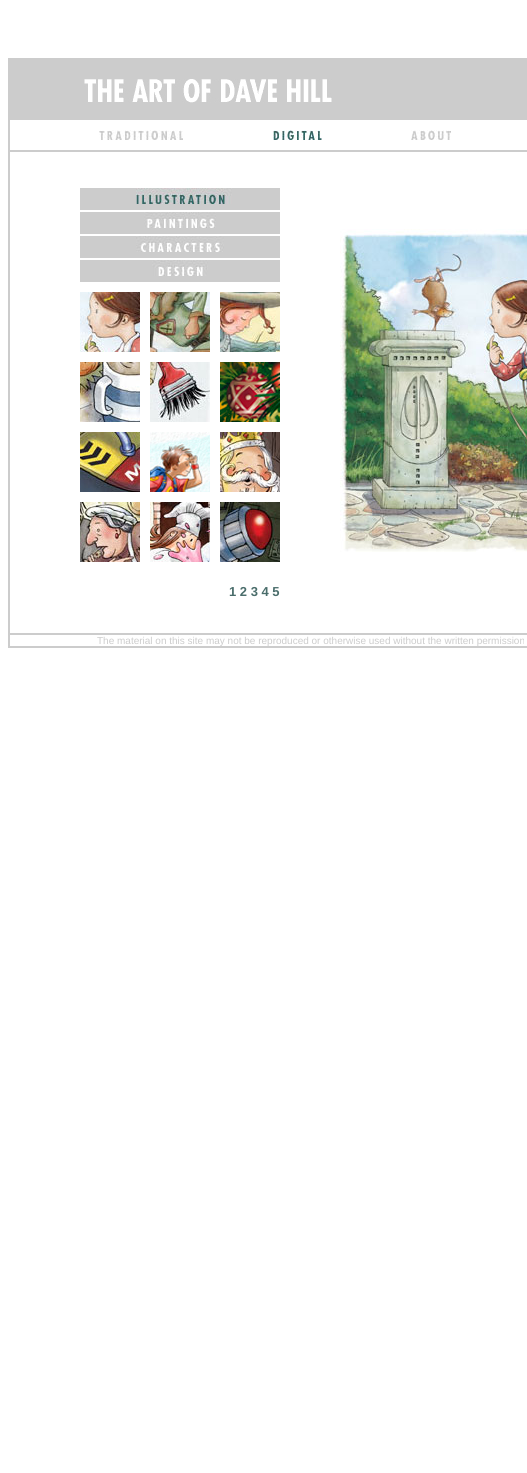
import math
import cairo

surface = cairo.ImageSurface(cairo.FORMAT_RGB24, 527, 1473)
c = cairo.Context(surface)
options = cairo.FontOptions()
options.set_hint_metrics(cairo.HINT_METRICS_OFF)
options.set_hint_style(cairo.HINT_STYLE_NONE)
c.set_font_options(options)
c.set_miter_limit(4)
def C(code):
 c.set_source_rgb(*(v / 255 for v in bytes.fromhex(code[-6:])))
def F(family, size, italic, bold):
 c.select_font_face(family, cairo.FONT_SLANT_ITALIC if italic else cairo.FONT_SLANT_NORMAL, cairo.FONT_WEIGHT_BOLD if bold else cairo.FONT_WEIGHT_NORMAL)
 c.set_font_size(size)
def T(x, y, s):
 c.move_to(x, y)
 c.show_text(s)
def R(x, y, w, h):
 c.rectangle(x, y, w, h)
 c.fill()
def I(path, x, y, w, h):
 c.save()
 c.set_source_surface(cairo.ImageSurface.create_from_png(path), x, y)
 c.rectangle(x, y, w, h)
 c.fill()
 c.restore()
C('ffffff')
c.paint()
C('cccccc')
R(8,58,519,590)
I('1.png',84,79,248,24)
C('ffffff')
R(10,120,517,30)
I('2.png',99,130,84,10)
I('3.png',273,130,49,10)
I('4.png',411,130,40,10)
R(10,152,517,481)
I('5.png',340,229,187,323)
I('6.png',80,188,200,22)
I('7.png',80,212,200,22)
I('8.png',80,236,200,22)
I('9.png',80,260,200,22)
I('10.png',80,292,60,60)
I('11.png',150,292,60,60)
I('12.png',220,292,60,60)
I('13.png',80,362,60,60)
I('14.png',150,362,60,60)
I('15.png',220,362,60,60)
I('16.png',80,432,60,60)
I('17.png',150,432,60,60)
I('18.png',220,432,60,60)
I('19.png',80,502,60,60)
I('20.png',150,502,60,60)
I('21.png',220,502,60,60)
F('Liberation Sans',13,0,1)
C('4a6d6b')
T(229,596,'1 2 3 4 5')
C('ffffff')
R(10,635,517,11)
F('Liberation Sans',10,0,0)
C('cccccc')
T(97,644,'The material on this site may not be reproduced or otherwise used without the written permission')
surface.write_to_png('o.png')
